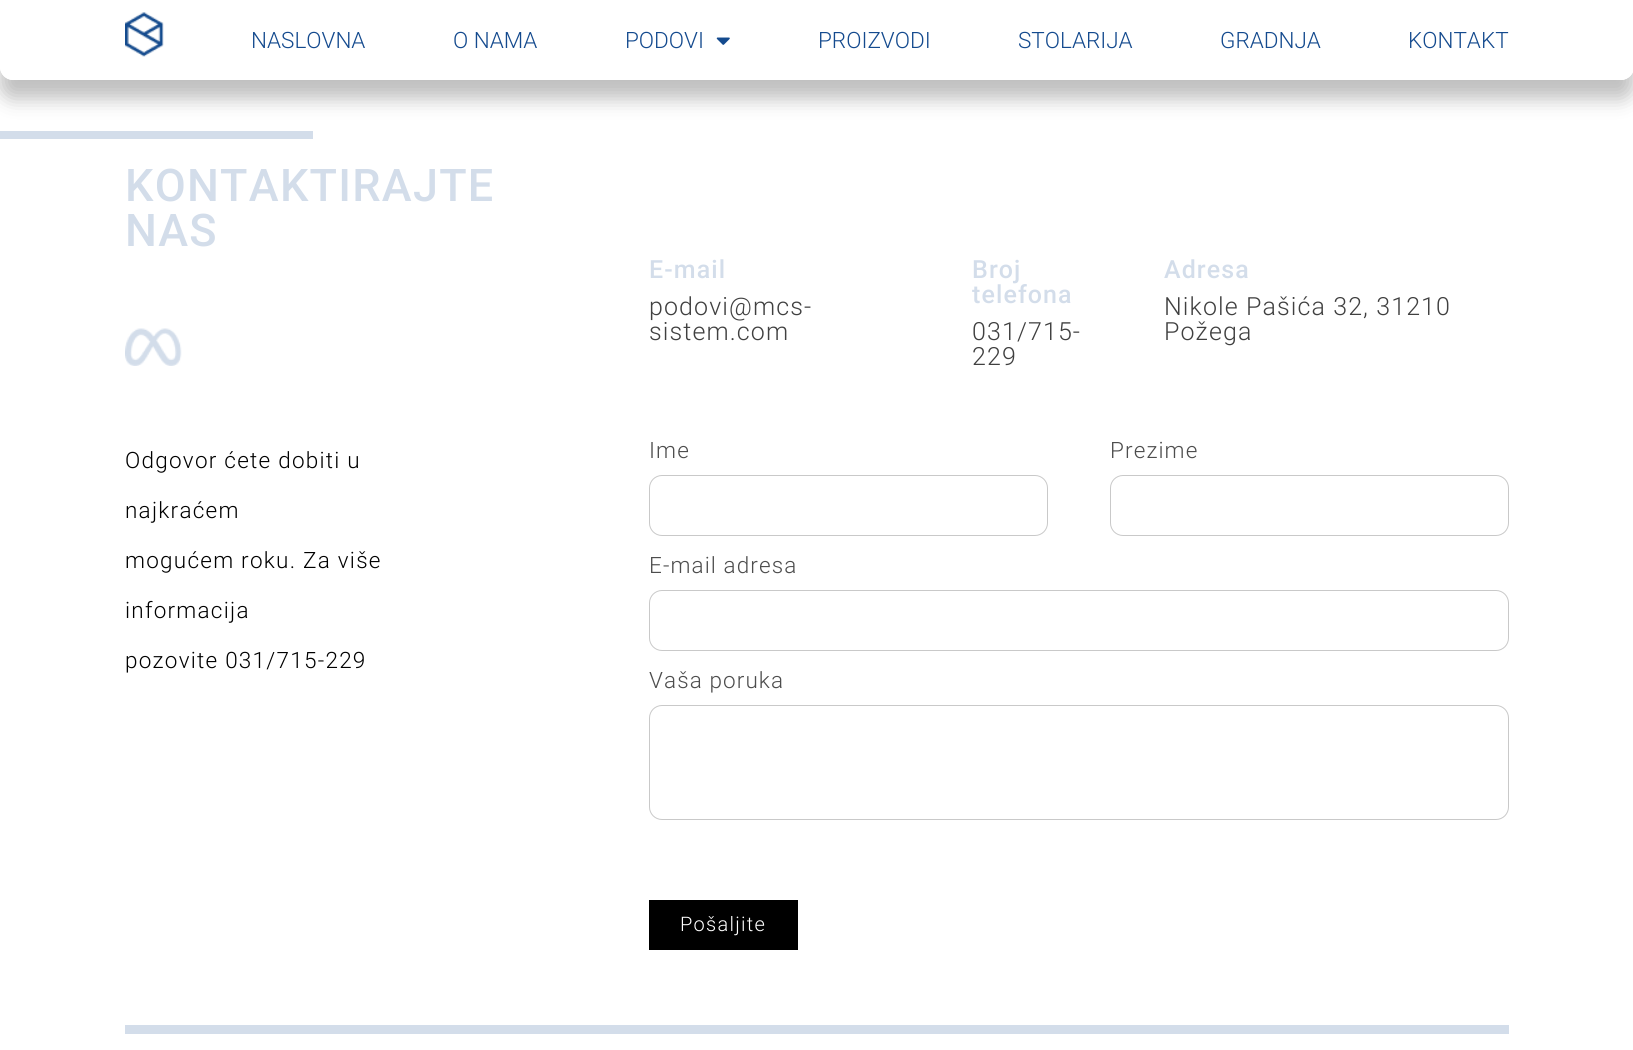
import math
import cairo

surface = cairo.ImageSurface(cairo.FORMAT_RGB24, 1633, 1050)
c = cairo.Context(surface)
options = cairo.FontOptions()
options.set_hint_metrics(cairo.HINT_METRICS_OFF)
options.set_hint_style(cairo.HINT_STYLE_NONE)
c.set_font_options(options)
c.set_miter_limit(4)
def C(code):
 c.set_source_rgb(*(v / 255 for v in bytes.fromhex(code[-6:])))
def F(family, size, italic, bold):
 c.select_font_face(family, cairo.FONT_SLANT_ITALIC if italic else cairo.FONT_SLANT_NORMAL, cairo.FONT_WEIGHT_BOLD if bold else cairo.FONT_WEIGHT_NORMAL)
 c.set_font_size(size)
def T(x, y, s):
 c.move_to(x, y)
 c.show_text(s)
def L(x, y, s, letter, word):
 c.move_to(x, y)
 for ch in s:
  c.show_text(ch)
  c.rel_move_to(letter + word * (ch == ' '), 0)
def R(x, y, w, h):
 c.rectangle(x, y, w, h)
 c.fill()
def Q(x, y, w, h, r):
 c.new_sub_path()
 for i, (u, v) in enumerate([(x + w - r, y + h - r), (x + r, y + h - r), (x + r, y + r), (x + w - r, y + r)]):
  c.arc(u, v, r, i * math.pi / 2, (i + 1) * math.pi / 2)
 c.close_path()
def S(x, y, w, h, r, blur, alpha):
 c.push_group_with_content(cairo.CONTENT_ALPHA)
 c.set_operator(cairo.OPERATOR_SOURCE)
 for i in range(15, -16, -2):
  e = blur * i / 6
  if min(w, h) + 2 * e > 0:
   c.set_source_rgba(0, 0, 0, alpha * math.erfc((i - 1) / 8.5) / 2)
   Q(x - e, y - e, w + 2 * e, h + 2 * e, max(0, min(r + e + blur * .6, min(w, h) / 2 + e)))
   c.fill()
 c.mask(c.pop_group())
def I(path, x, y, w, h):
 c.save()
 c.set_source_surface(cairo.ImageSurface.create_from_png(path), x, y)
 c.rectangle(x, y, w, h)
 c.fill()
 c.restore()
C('ffffff')
c.paint()
c.save()
c.set_fill_rule(cairo.FILL_RULE_EVEN_ODD)
c.new_path()
c.move_to(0,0)
c.line_to(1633,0)
c.line_to(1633,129)
c.line_to(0,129)
c.close_path()
c.move_to(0,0)
c.line_to(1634,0)
c.line_to(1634,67)
c.curve_to(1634,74,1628,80,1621,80)
c.line_to(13,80)
c.curve_to(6,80,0,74,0,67)
c.close_path()
c.clip()
C('000000')
S(0,19,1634,80,13,9.5,.25)
c.restore()
c.set_source_rgba(1,1,1,0.94)
c.new_path()
c.move_to(0,0)
c.line_to(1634,0)
c.line_to(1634,67)
c.curve_to(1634,74,1628,80,1621,80)
c.line_to(13,80)
c.curve_to(6,80,0,74,0,67)
c.close_path()
c.fill()
I('1.png',125,12,39,45)
F('Roboto Light',22.5,0,0)
C('144a8e')
T(251,48,'NASLOVNA')
T(453,48,'O NAMA')
T(625,48,'PODOVI')
I('2.png',716,37,14,8)
T(818,48,'PROIZVODI')
T(1018,48,'STOLARIJA')
T(1220,48,'GRADNJA')
T(1408,48,'KONTAKT')
C('d3ddea')
R(0,131,313,8)
F('Roboto Medium',45,0,0)
L(125,201,'KONTAKTIRAJTE',1.25,0)
L(125,246,'NAS',1.25,0)
I('3.png',125,328,57,38)
F('Roboto Light',22.5,0,0)
C('000000')
L(125,468,'Odgovor ćete dobiti u',1.25,0)
L(125,518,'najkraćem',1.25,0)
L(125,568,'mogućem roku. Za više',1.25,0)
L(125,618,'informacija',1.25,0)
L(125,668,'pozovite 031/715-229',1.25,0)
F('Roboto Medium',25,0,0)
C('d3ddea')
L(649,278,'E-mail',1.1,0)
F('Roboto Light',25,0,0)
C('404040')
L(649,315,'podovi@mcs-',1.1,0)
L(649,340,'sistem.com',1.1,0)
F('Roboto Medium',25,0,0)
C('d3ddea')
L(972,278,'Broj',1.1,0)
L(972,303,'telefona',1.1,0)
F('Roboto Light',25,0,0)
C('404040')
L(972,340,'031/715-',1.1,0)
L(972,365,'229',1.1,0)
F('Roboto Medium',25,0,0)
C('d3ddea')
L(1164,278,'Adresa',1.1,0)
F('Roboto Light',25,0,0)
C('404040')
L(1164,315,'Nikole Pašića 32, 31210',1.1,0)
L(1164,340,'Požega',1.1,0)
F('Roboto Light',22.5,0,0)
C('4d4d4d')
L(649,458,'Ime',1.1,0)
Q(649.5,475.5,398,60,12.5)
C('c9c9c9')
c.set_line_width(1)
c.stroke()
C('4d4d4d')
L(1110,458,'Prezime',1.1,0)
Q(1110.5,475.5,398,60,12.5)
C('c9c9c9')
c.stroke()
C('4d4d4d')
L(649,573,'E-mail adresa',1.1,0)
Q(649.5,590.5,859,60,12.5)
C('c9c9c9')
c.stroke()
C('4d4d4d')
L(649,688,'Vaša poruka',1.1,0)
Q(649.5,705.5,859,114,12.5)
C('c9c9c9')
c.stroke()
C('000000')
R(649,900,149,50)
F('Roboto Light',20,0,0)
C('ffffff')
L(680,931,'Pošaljite',1.25,0)
C('d3ddea')
R(125,1025,1384,9)
surface.write_to_png('o.png')
